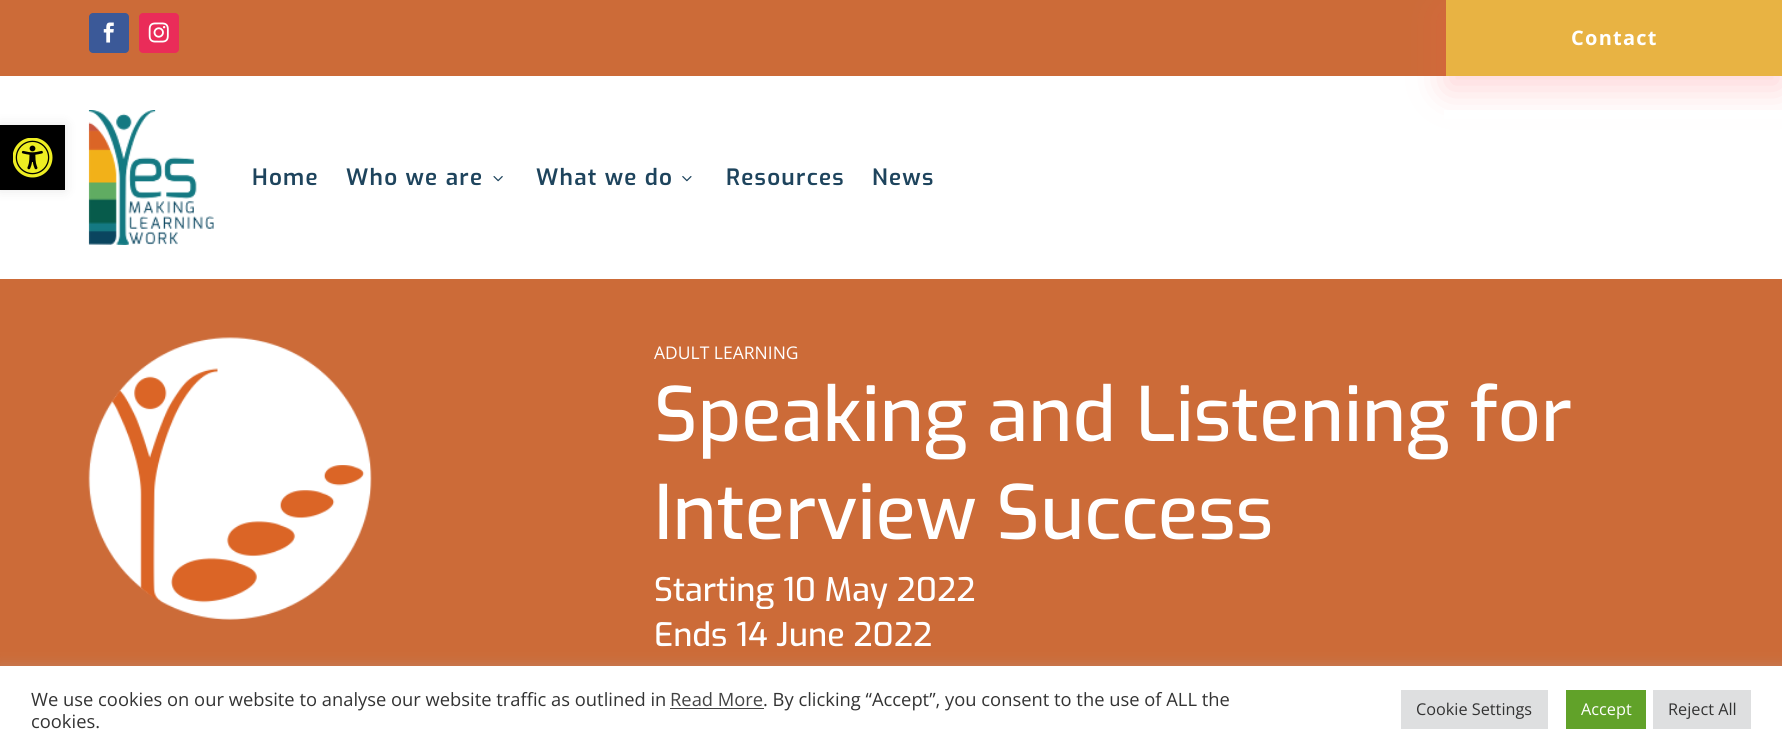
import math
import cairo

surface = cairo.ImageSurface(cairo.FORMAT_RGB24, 1782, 752)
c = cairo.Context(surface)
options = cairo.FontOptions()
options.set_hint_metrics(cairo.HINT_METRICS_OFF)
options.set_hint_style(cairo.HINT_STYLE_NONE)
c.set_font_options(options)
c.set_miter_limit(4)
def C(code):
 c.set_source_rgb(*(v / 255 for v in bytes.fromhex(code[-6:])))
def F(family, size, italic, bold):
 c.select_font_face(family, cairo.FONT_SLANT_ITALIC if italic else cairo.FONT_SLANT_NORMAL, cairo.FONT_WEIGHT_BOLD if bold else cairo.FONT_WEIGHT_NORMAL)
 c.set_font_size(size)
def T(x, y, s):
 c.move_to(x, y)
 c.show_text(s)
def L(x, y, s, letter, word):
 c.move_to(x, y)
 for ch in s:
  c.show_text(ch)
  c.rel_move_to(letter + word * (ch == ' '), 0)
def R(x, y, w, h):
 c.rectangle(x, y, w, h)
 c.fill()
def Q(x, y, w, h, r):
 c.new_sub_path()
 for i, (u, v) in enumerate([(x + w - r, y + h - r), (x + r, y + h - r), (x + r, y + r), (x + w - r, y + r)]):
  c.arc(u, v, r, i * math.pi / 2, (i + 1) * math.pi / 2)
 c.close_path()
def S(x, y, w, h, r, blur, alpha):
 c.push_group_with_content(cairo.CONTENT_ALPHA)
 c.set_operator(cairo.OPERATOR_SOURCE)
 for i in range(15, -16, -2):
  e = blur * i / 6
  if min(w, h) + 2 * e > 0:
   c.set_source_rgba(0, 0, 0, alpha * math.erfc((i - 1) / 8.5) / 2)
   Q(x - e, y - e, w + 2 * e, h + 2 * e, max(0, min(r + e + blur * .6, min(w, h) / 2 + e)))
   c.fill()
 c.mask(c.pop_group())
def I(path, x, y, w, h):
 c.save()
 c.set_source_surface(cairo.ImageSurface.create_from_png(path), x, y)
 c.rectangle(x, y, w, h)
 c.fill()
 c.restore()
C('ffffff')
c.paint()
C('000000')
S(0,125,65,65,0,6,.1)
C('000000')
R(0,125,65,65)
I('1.png',13,138,40,40)
C('cc6b38')
R(0,0,1446,76)
C('3b5998')
Q(89,13,40,40,4)
c.fill()
I('2.png',103,22,11,21)
C('ea2c59')
Q(139,13,40,40,4)
c.fill()
I('3.png',148,22,21,21)
C('ff4d54')
S(1446,13,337,76,0,19,.24)
C('e8b343')
R(1446,0,336,76)
F('Open Sans',20,0,1)
C('ffffff')
L(1571,45,'Contact',1.25,0)
R(1444,110,338,9)
I('4.png',88,110,126,135)
F('Exo SemiBold',22.5,0,0)
C('1e445d')
L(252,185,'Home',1.25,0)
L(346,185,'Who we are',1.25,0)
I('5.png',493,176,10,6)
L(536,185,'What we do',1.25,0)
I('6.png',682,176,10,6)
L(726,185,'Resources',1.25,0)
L(872,185,'News',1.25,0)
C('cc6b38')
R(0,279,1782,387)
I('7.png',88,337,284,283)
F('Open Sans',17.5,0,0)
C('ffffff')
T(654,359,'ADULT LEARNING')
F('Exo Medium',75,0,0)
T(654,441,'Speaking and Listening for')
T(654,539,'Interview Success')
F('Exo Medium',32.5,0,0)
T(654,601,'Starting 10 May 2022')
T(654,646,'Ends 14 June 2022')
C('acabab')
S(0,665,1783,86,0,6,.3)
C('ffffff')
R(0,666,1782,86)
F('Open Sans',18.35,0,0)
C('333333')
T(31,706,'We use cookies on our website to analyse our website traffic as outlined in')
C('444444')
T(670,706,'Read More')
R(670,708,94,1)
C('333333')
T(763,706,'. By clicking “Accept”, you consent to the use of ALL the')
T(31,728,'cookies.')
C('dedfe0')
R(1401,690,147,39)
F('Open Sans',16.25,0,0)
C('333333')
T(1416,715,'Cookie Settings')
C('61a229')
R(1566,690,80,39)
C('ffffff')
T(1581,715,'Accept')
C('dedfe0')
R(1653,690,98,39)
C('333333')
T(1668,715,'Reject All')
surface.write_to_png('o.png')
